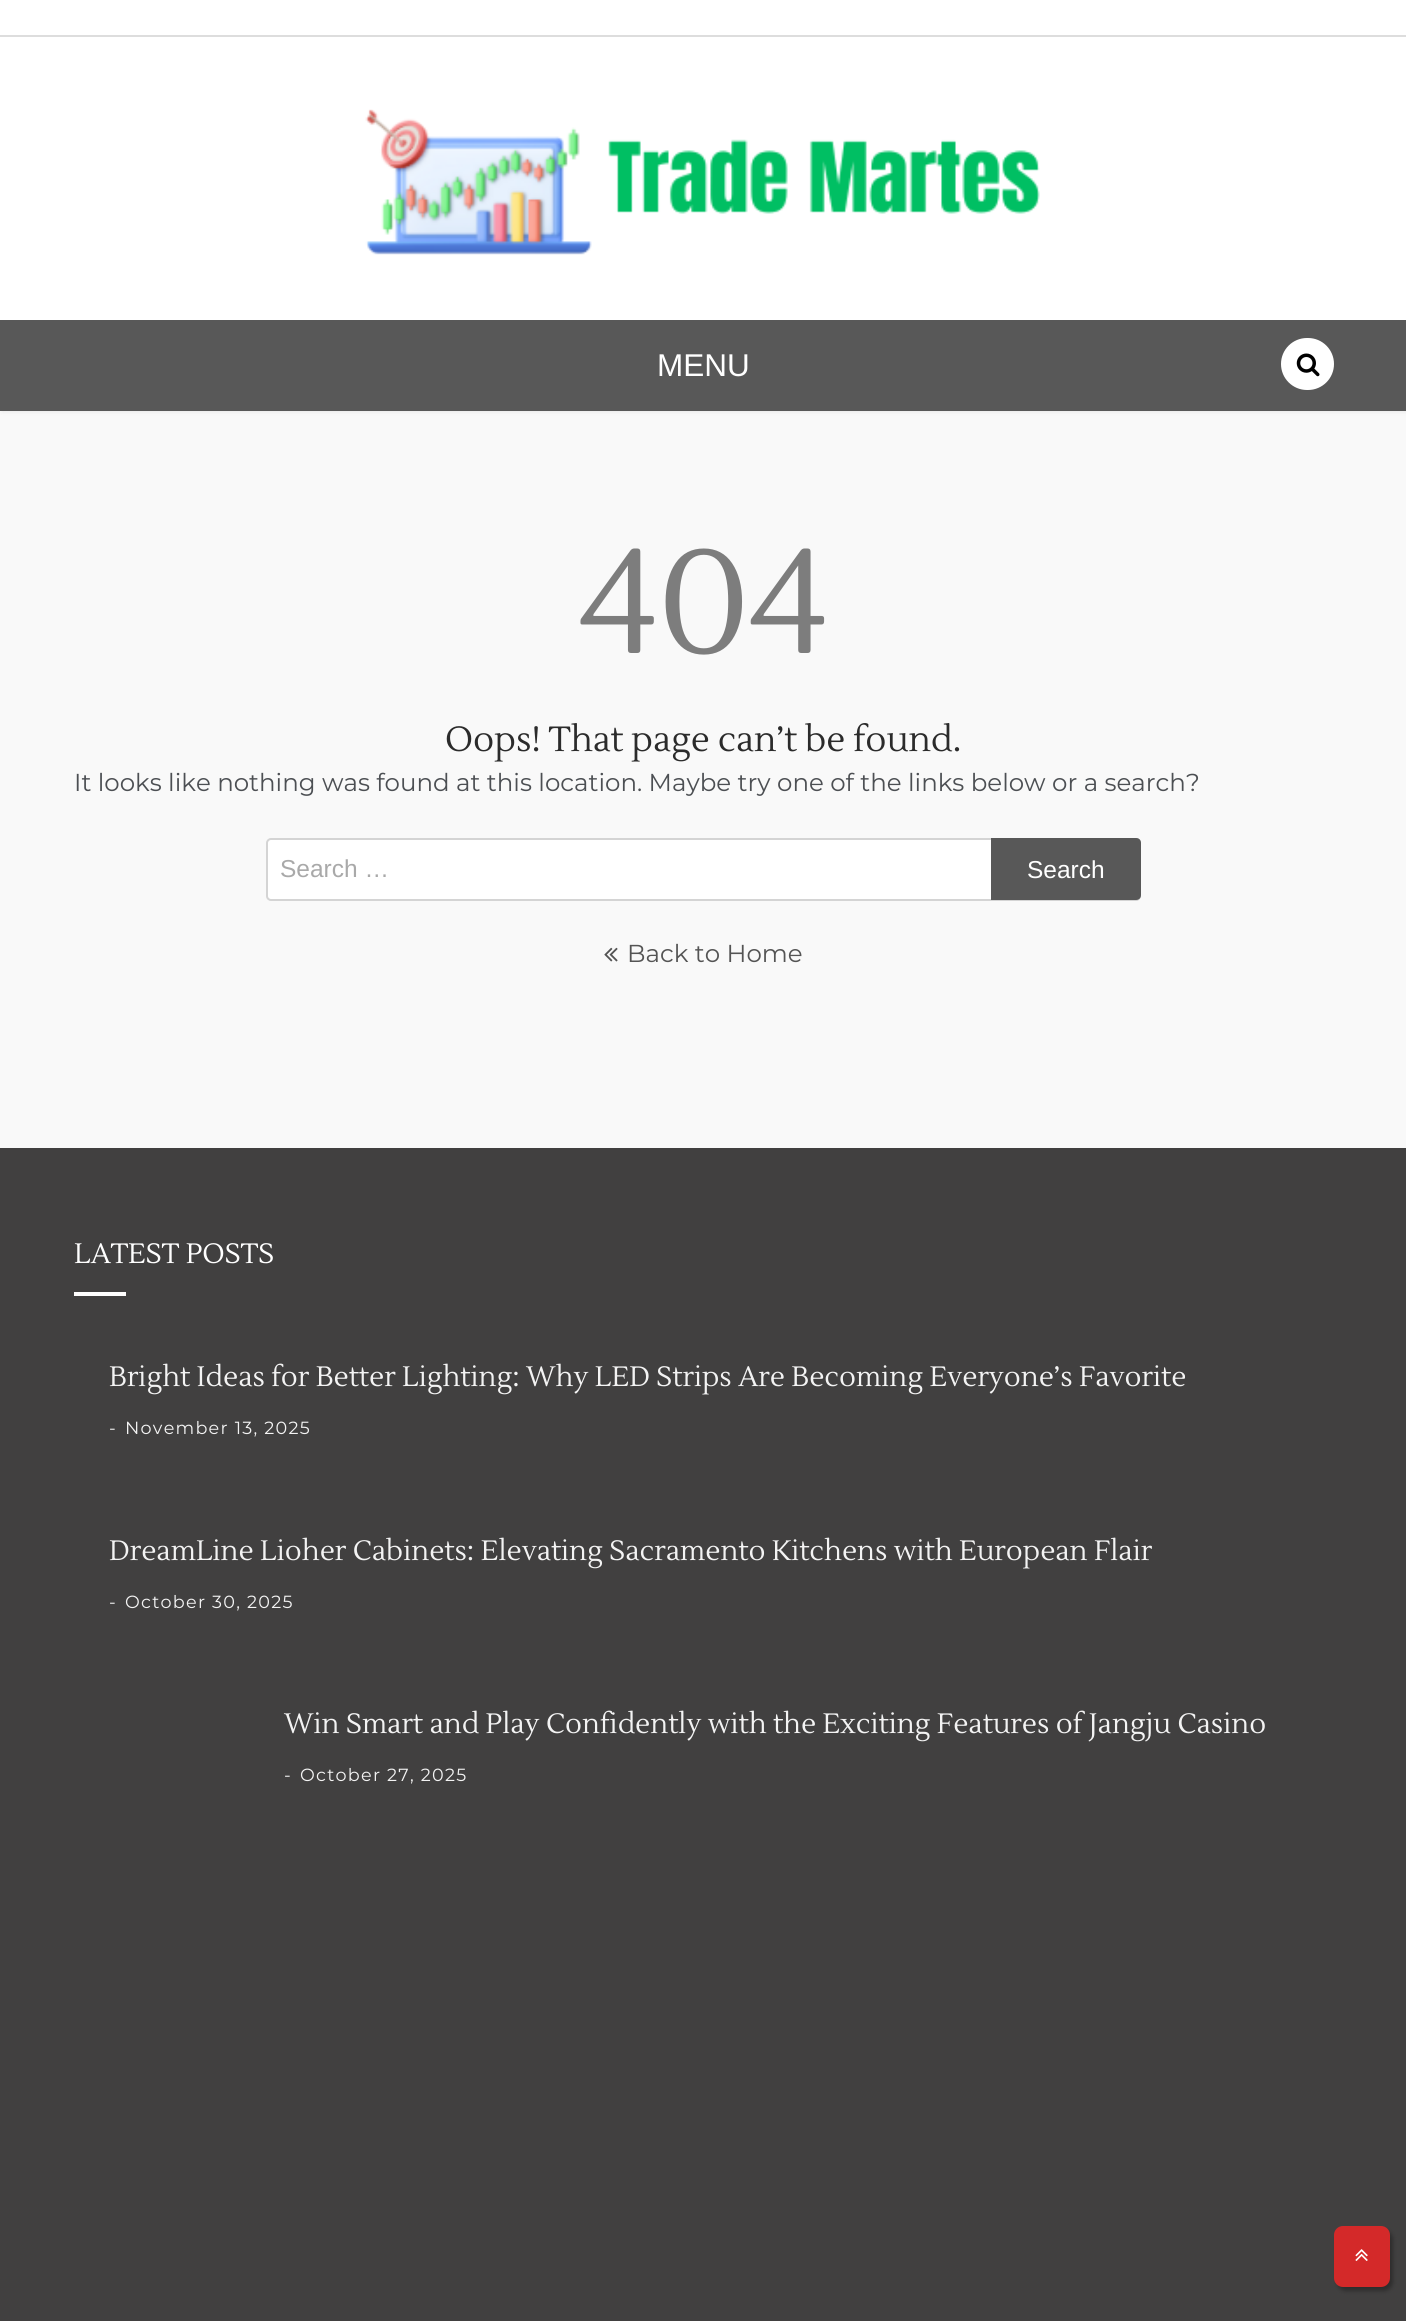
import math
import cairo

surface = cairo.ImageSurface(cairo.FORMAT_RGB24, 1406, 2321)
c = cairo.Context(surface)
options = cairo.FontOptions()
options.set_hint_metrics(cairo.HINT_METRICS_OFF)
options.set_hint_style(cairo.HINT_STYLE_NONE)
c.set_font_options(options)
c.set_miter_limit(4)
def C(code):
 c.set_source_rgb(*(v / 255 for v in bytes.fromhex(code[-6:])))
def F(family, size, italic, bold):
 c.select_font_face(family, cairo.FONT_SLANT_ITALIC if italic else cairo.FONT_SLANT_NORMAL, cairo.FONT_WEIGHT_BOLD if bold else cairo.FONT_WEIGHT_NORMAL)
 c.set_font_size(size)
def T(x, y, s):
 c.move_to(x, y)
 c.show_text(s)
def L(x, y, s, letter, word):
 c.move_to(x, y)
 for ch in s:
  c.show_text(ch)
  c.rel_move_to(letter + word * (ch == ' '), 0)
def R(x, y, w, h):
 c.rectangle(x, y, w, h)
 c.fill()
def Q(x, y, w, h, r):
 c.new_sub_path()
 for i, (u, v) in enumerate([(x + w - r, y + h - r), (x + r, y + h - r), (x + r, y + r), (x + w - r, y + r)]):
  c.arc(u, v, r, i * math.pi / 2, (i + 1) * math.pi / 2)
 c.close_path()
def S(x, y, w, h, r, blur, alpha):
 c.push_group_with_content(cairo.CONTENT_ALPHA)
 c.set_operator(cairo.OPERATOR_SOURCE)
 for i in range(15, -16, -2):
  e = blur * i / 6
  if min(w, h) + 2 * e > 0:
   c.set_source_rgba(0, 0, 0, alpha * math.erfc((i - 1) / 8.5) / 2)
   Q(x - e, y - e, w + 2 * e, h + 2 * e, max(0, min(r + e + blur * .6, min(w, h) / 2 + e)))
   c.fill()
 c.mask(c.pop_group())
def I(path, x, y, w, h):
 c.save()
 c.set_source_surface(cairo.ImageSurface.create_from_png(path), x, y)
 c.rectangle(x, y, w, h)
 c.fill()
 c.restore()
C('f9f9f9')
c.paint()
C('000000')
S(2,0,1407,411,0,2.5,.1)
C('ffffff')
R(0,0,1406,320)
C('dddddd')
R(0,35,1406,2)
I('1.png',365,109,675,146)
C('585858')
R(0,320,1406,91)
F('Liberation Sans',31.5,0,0)
C('ffffff')
T(657,376,'MENU')
Q(1281,338,53,52,26)
c.fill()
I('2.png',1296,353,24,24)
F('Lustria',147,0,0)
C('7d7d7d')
T(579,653,'404')
F('Lustria',35,0,0)
C('2b2b2b')
T(445,751,'Oops! That page can’t be found.')
F('Montserrat',24.5,0,0)
C('4c4f53')
T(74,791,'It looks like nothing was found at this location. Maybe try one of the links below or a search?')
C('ffffff')
Q(267,839,873,61,4)
c.fill_preserve()
C('d4d4d4')
c.stroke()
F('Liberation Sans',24.5,0,0)
C('a9a9a9')
T(280,877,'Search …')
C('585858')
c.new_path()
c.move_to(991,838)
c.line_to(1136,838)
c.curve_to(1139,838,1141,840,1141,843)
c.line_to(1141,895)
c.curve_to(1141,898,1139,900,1136,900)
c.line_to(991,900)
c.close_path()
c.fill()
C('ffffff')
T(1027,878,'Search')
I('3.png',604,947,14,15)
F('Montserrat',24.5,0,0)
C('545454')
T(627,962,'Back to Home')
C('414040')
R(0,1148,1406,1173)
F('Lustria',28,0,0)
C('ffffff')
T(74,1263,'LATEST POSTS')
R(74,1292,52,4)
C('f3f3f3')
T(109,1386,'Bright Ideas for Better Lighting: Why LED Strips Are Becoming Everyone’s Favorite')
F('Montserrat',17.6,0,0)
L(109,1434,'-',1.25,0)
L(125,1434,'November 13, 2025',1.25,0)
F('Lustria',28,0,0)
T(109,1560,'DreamLine Lioher Cabinets: Elevating Sacramento Kitchens with European Flair')
F('Montserrat',17.6,0,0)
L(109,1608,'-',1.25,0)
L(125,1608,'October 30, 2025',1.25,0)
F('Lustria',28,0,0)
T(284,1733,'Win Smart and Play Confidently with the Exciting Features of Jangju Casino')
F('Montserrat',17.6,0,0)
L(284,1781,'-',1.25,0)
L(300,1781,'October 27, 2025',1.25,0)
C('000000')
S(1337,2230,56,61,9,2,.3)
C('d42929')
Q(1334,2226,56,61,9)
c.fill()
I('4.png',1355,2249,13,12)
surface.write_to_png('o.png')
